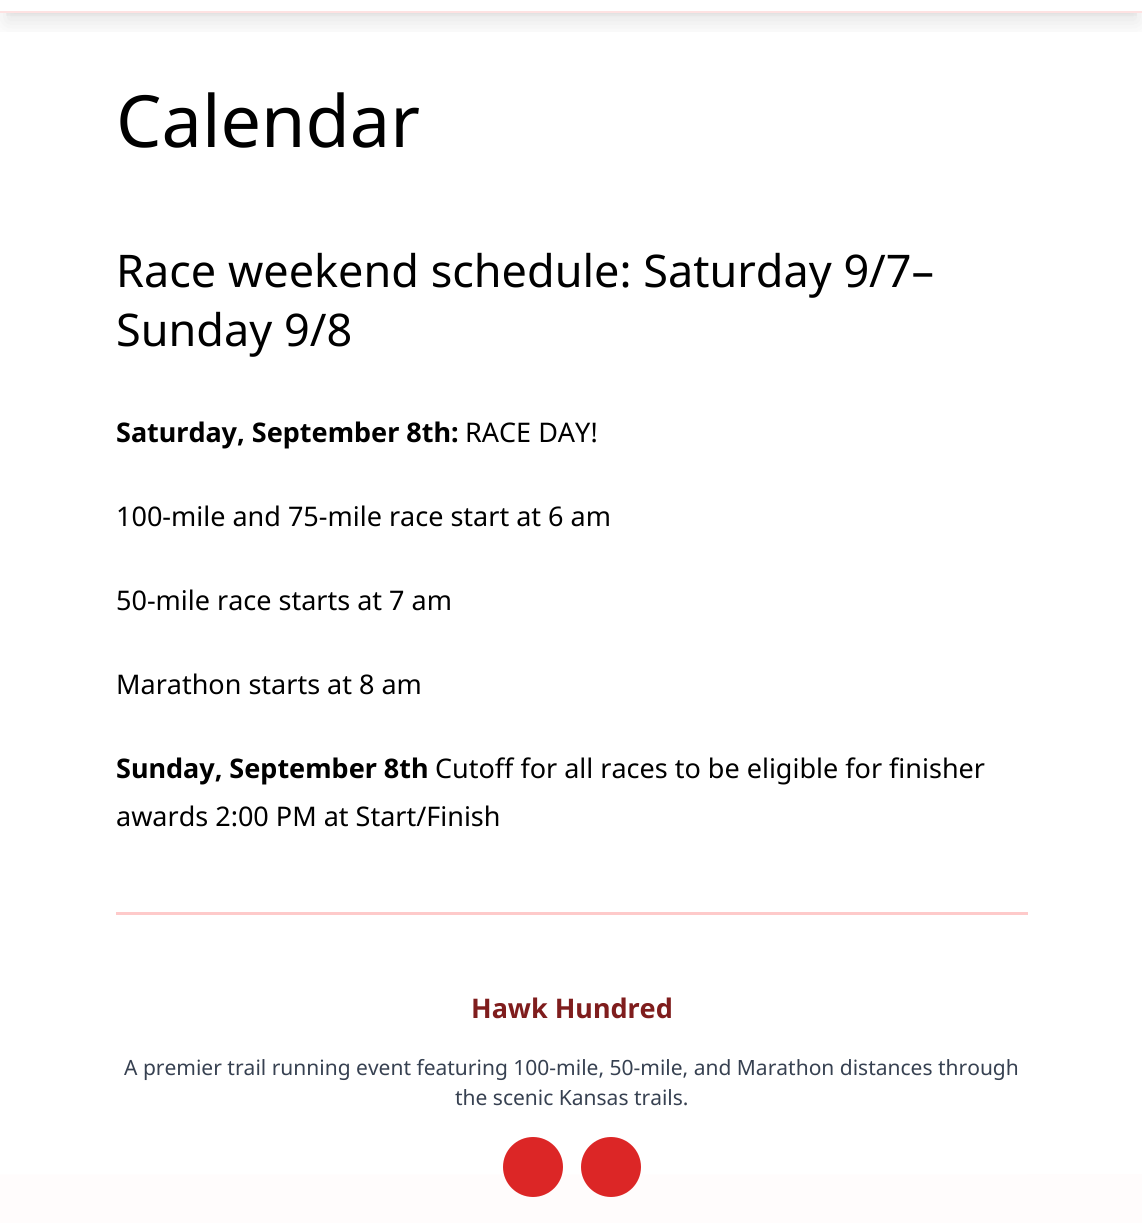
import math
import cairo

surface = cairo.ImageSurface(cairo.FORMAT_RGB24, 1142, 1223)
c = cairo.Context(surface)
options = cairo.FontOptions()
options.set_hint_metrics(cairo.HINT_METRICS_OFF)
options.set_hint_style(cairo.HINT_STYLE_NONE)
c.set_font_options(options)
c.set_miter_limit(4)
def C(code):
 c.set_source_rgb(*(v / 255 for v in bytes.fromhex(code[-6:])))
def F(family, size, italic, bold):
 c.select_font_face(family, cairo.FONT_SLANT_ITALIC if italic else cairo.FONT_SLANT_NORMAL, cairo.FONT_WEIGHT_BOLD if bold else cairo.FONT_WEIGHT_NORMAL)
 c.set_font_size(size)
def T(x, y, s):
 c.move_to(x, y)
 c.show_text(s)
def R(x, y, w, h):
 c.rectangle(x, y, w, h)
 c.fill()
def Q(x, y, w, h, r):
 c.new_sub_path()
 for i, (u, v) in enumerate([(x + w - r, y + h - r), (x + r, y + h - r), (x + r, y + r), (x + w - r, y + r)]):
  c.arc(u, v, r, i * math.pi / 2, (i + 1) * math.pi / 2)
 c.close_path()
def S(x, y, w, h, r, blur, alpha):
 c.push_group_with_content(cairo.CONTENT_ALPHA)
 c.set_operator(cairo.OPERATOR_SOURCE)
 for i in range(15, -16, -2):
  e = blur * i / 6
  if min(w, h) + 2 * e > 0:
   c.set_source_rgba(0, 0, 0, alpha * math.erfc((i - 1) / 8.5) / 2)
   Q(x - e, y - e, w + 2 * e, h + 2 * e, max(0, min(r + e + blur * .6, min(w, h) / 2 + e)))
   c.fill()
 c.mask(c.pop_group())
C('ffffff')
c.paint()
c.save()
c.rectangle(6,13,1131,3)
c.clip()
C('000000')
S(6,-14,1131,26,0,4.5,.1)
c.restore()
c.save()
c.rectangle(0,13,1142,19)
c.clip()
C('000000')
S(5,-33,1134,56,0,11,.1)
c.restore()
C('fee2e2')
R(0,11,1142,2)
F('Noto Sans',72,0,0)
C('000000')
T(116,147,'Calendar')
F('Noto Sans',45,0,0)
T(116,287,'Race weekend schedule: Saturday 9/7–')
T(116,346,'Sunday 9/8')
F('Noto Sans',27,0,1)
T(116,442,'Saturday, September 8th:')
F('Noto Sans',27,0,0)
T(465,442,'RACE DAY!')
T(116,526,'100-mile and 75-mile race start at 6 am')
T(116,610,'50-mile race starts at 7 am')
T(116,694,'Marathon starts at 8 am')
F('Noto Sans',27,0,1)
T(116,778,'Sunday, September 8th')
F('Noto Sans',27,0,0)
T(435,778,'Cutoff for all races to be eligible for finisher')
T(116,826,'awards 2:00 PM at Start/Finish')
gradient = cairo.LinearGradient(571,912,572,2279)
gradient.add_color_stop_rgba(0,1,1,1,1)
gradient.add_color_stop_rgba(1,0.996,0.949,0.949,1)
c.set_source(gradient)
R(0,1174,1142,49)
C('fecaca')
R(116,912,912,3)
F('Noto Sans',27,0,1)
C('7f1d1d')
T(471,1018,'Hawk Hundred')
F('Noto Sans',21,0,0)
C('374151')
T(124,1075,'A premier trail running event featuring 100-mile, 50-mile, and Marathon distances through')
T(455,1105,'the scenic Kansas trails.')
C('dc2626')
c.new_path()
c.arc(533,1167,30,0,2 * math.pi)
c.fill()
c.arc(611,1167,30,0,2 * math.pi)
c.fill()
surface.write_to_png('o.png')
